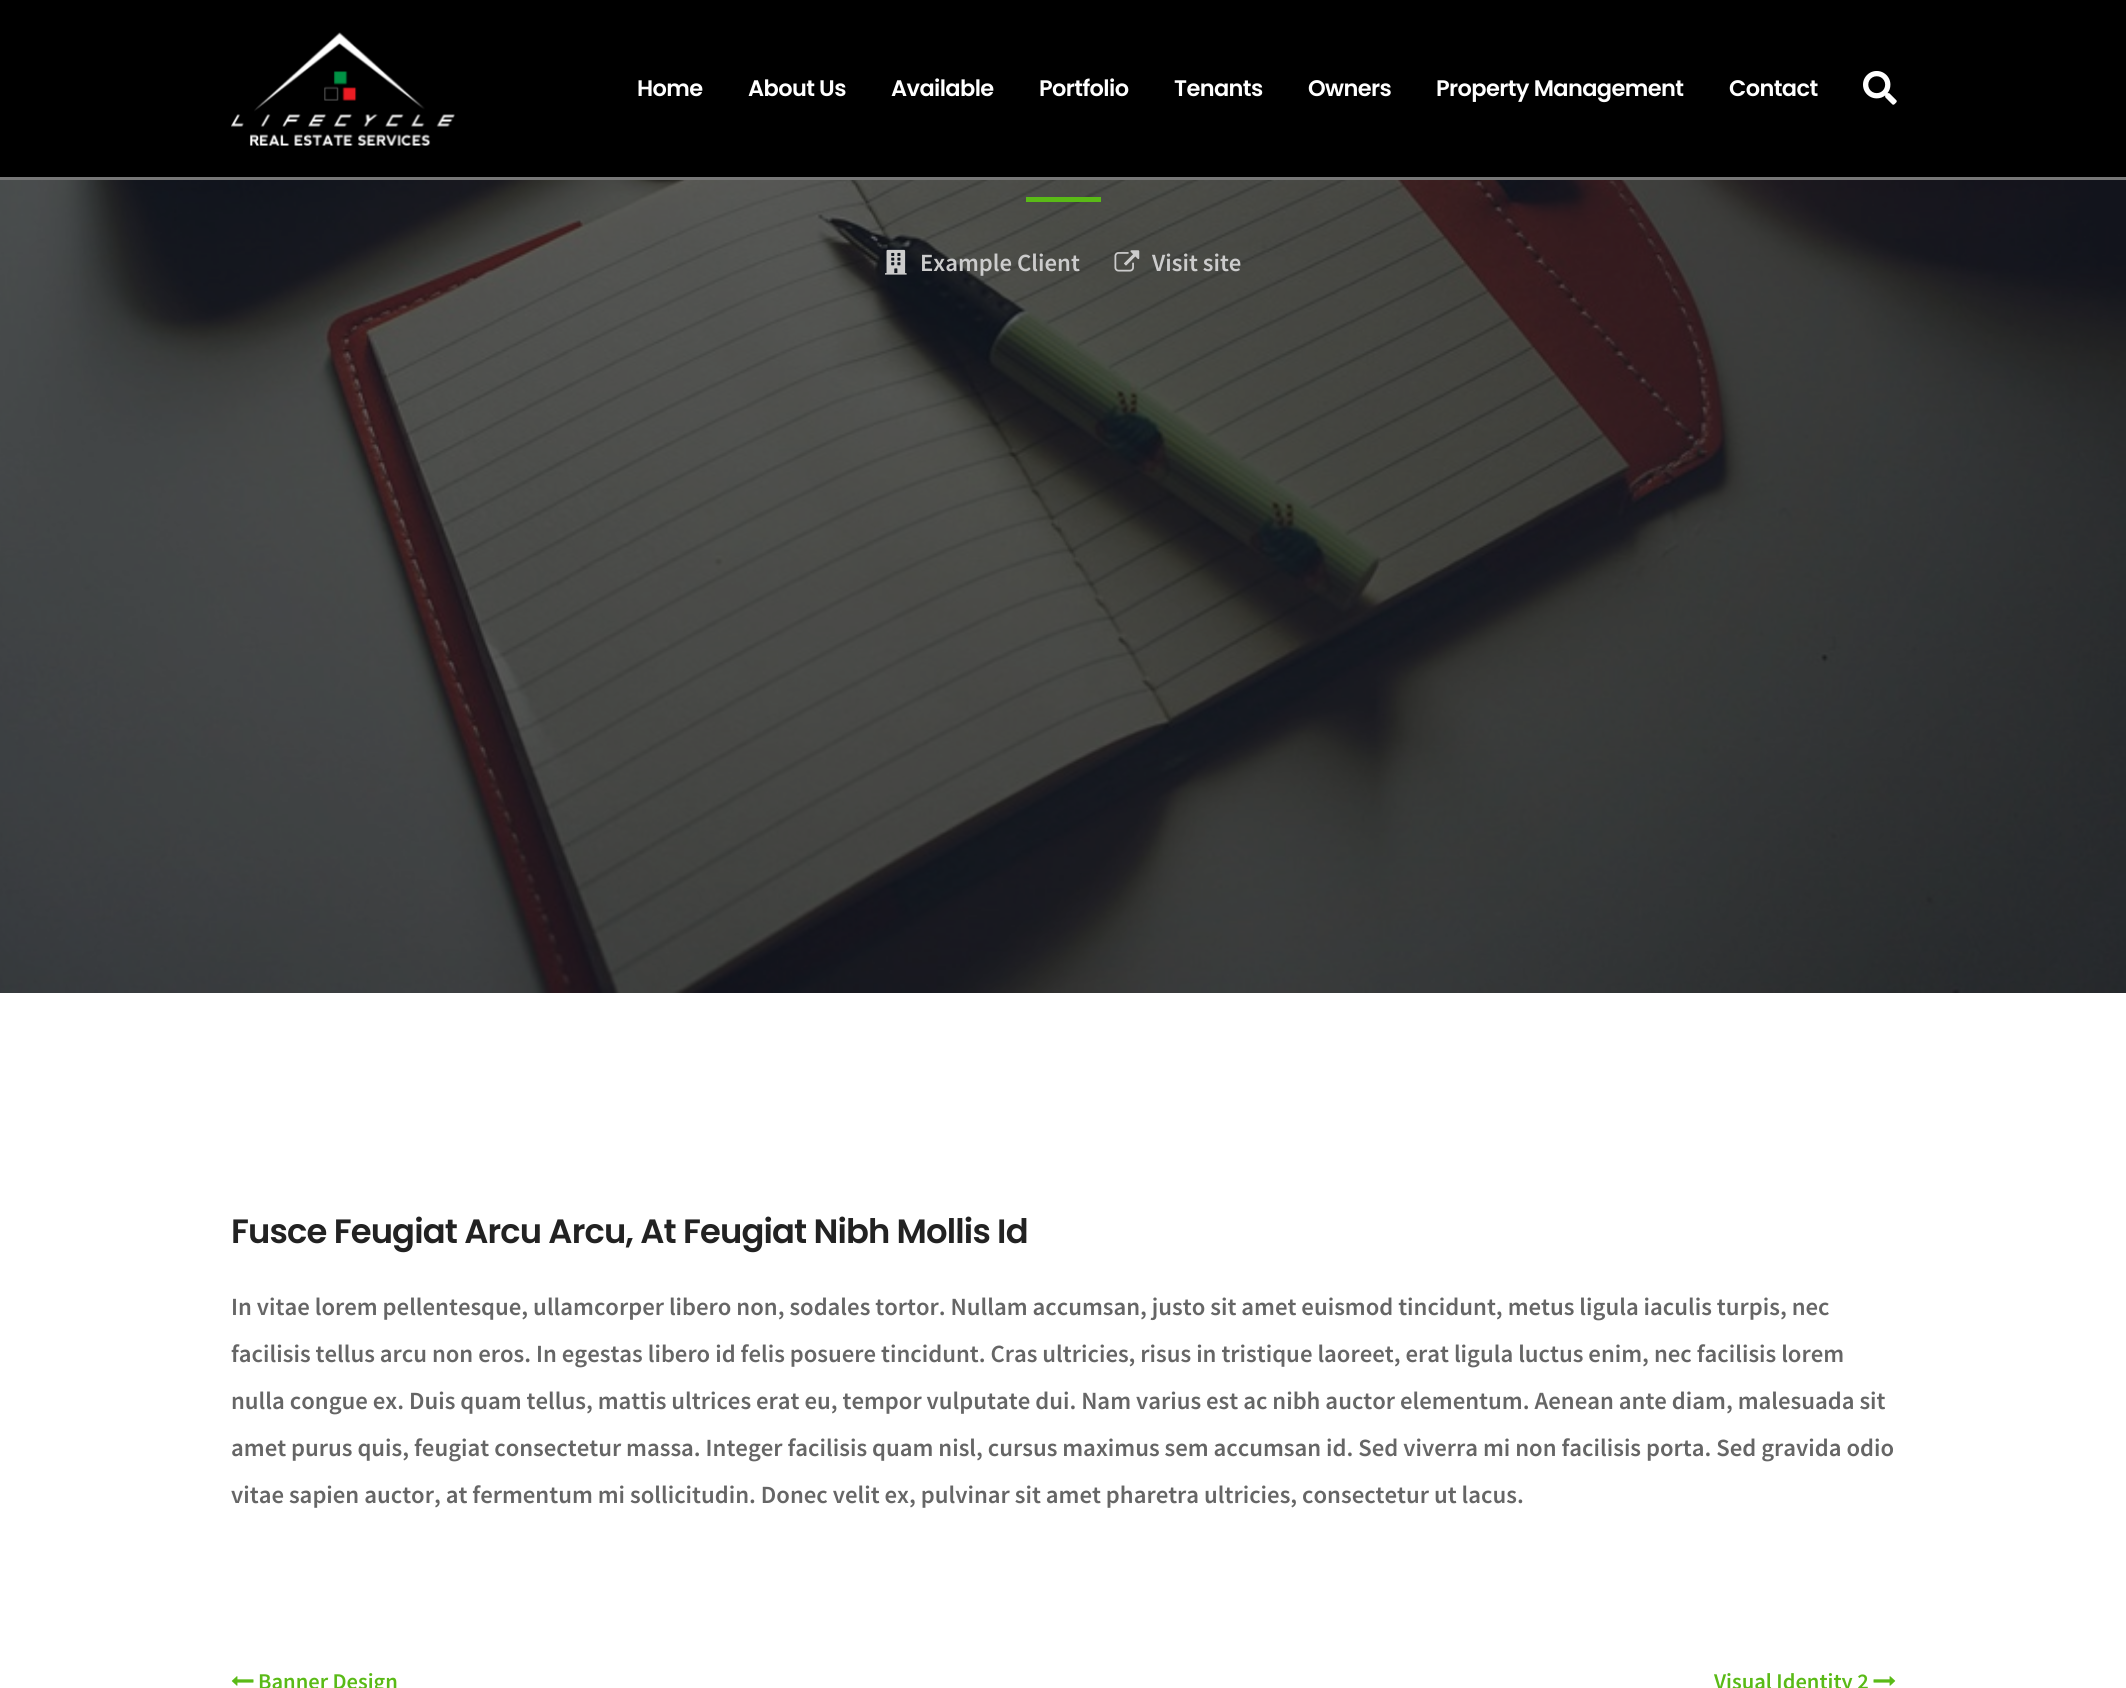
import math
import cairo

surface = cairo.ImageSurface(cairo.FORMAT_RGB24, 2126, 1688)
c = cairo.Context(surface)
options = cairo.FontOptions()
options.set_hint_metrics(cairo.HINT_METRICS_OFF)
options.set_hint_style(cairo.HINT_STYLE_NONE)
c.set_font_options(options)
c.set_miter_limit(4)
def C(code):
 c.set_source_rgb(*(v / 255 for v in bytes.fromhex(code[-6:])))
def F(family, size, italic, bold):
 c.select_font_face(family, cairo.FONT_SLANT_ITALIC if italic else cairo.FONT_SLANT_NORMAL, cairo.FONT_WEIGHT_BOLD if bold else cairo.FONT_WEIGHT_NORMAL)
 c.set_font_size(size)
def T(x, y, s):
 c.move_to(x, y)
 c.show_text(s)
def L(x, y, s, letter, word):
 c.move_to(x, y)
 for ch in s:
  c.show_text(ch)
  c.rel_move_to(letter + word * (ch == ' '), 0)
def R(x, y, w, h):
 c.rectangle(x, y, w, h)
 c.fill()
def I(path, x, y, w, h):
 c.save()
 c.set_source_surface(cairo.ImageSurface.create_from_png(path), x, y)
 c.rectangle(x, y, w, h)
 c.fill()
 c.restore()
C('ffffff')
c.paint()
C('000000')
R(0,0,2126,177)
C('777777')
R(0,177,2126,3)
I('1.png',231,32,224,114)
F('Poppins SemiBold',22.5,0,0)
C('ffffff')
L(637,96,'Home',-.6,0)
L(748,96,'About Us',-.6,0)
L(891,96,'Available',-.6,0)
L(1039,96,'Portfolio',-.6,0)
L(1174,96,'Tenants',-.6,0)
L(1308,96,'Owners',-.6,0)
L(1436,96,'Property Management',-.6,0)
L(1729,96,'Contact',-.6,0)
I('2.png',1863,71,34,34)
I('3.png',0,180,2126,813)
C('5aba17')
R(1026,197,75,5)
I('4.png',885,249,22,26)
F('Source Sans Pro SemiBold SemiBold',24.75,0,0)
C('cccccc')
T(920,271,'Example Client')
I('5.png',1114,250,26,22)
T(1152,271,'Visit site')
F('Poppins SemiBold',33.75,0,0)
C('222222')
L(231,1243,'Fusce Feugiat Arcu Arcu, At Feugiat Nibh Mollis Id',-.85,0)
F('Source Sans Pro SemiBold SemiBold',24.75,0,0)
C('666666')
T(231,1315,'In vitae lorem pellentesque, ullamcorper libero non, sodales tortor. Nullam accumsan, justo sit amet euismod tincidunt, metus ligula iaculis turpis, nec')
T(231,1362,'facilisis tellus arcu non eros. In egestas libero id felis posuere tincidunt. Cras ultricies, risus in tristique laoreet, erat ligula luctus enim, nec facilisis lorem')
T(231,1409,'nulla congue ex. Duis quam tellus, mattis ultrices erat eu, tempor vulputate dui. Nam varius est ac nibh auctor elementum. Aenean ante diam, malesuada sit')
T(231,1456,'amet purus quis, feugiat consectetur massa. Integer facilisis quam nisl, cursus maximus sem accumsan id. Sed viverra mi non facilisis porta. Sed gravida odio')
T(231,1503,'vitae sapien auctor, at fermentum mi sollicitudin. Donec velit ex, pulvinar sit amet pharetra ultricies, consectetur ut lacus.')
I('6.png',231,1676,23,10)
F('Source Sans Pro SemiBold SemiBold',22.5,0,0)
C('5aba17')
T(258,1689,'Banner Design')
T(1714,1689,'Visual Identity 2')
I('7.png',1873,1676,23,10)
surface.write_to_png('o.png')
